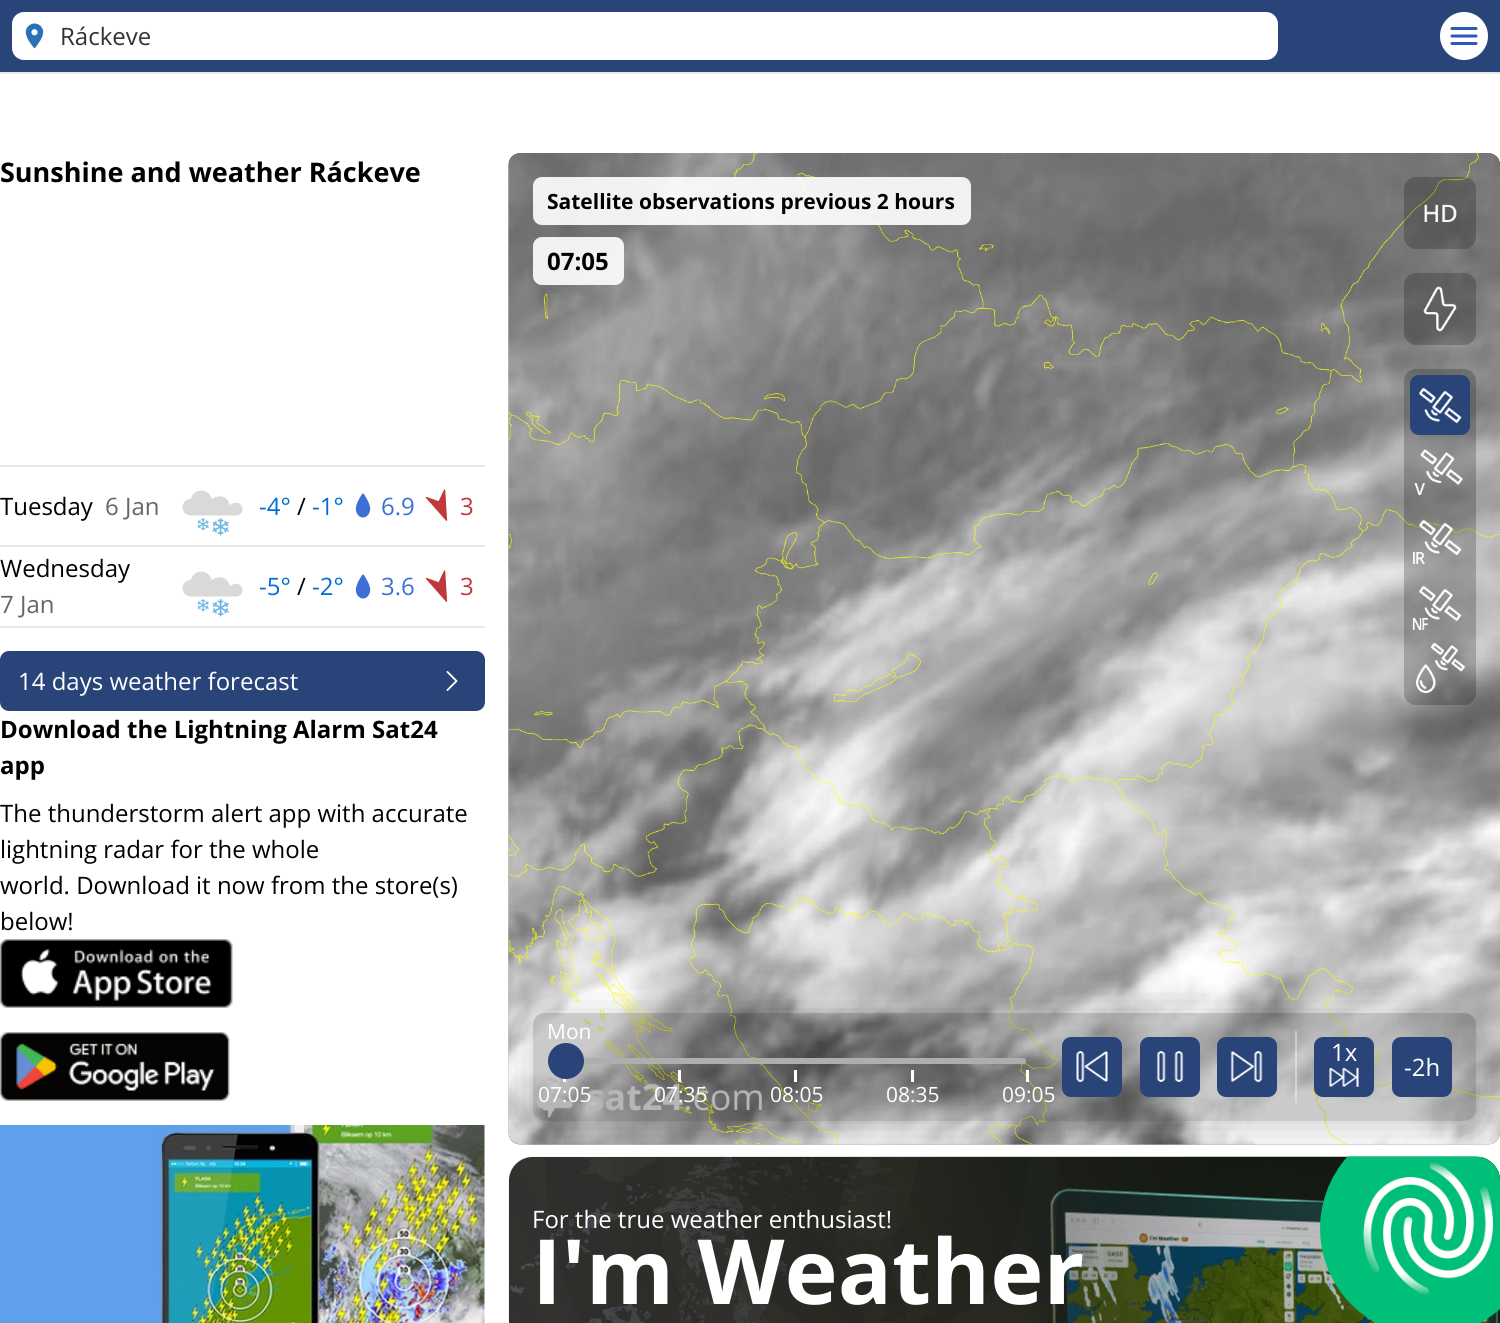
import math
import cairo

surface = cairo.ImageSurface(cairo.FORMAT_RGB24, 1500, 1323)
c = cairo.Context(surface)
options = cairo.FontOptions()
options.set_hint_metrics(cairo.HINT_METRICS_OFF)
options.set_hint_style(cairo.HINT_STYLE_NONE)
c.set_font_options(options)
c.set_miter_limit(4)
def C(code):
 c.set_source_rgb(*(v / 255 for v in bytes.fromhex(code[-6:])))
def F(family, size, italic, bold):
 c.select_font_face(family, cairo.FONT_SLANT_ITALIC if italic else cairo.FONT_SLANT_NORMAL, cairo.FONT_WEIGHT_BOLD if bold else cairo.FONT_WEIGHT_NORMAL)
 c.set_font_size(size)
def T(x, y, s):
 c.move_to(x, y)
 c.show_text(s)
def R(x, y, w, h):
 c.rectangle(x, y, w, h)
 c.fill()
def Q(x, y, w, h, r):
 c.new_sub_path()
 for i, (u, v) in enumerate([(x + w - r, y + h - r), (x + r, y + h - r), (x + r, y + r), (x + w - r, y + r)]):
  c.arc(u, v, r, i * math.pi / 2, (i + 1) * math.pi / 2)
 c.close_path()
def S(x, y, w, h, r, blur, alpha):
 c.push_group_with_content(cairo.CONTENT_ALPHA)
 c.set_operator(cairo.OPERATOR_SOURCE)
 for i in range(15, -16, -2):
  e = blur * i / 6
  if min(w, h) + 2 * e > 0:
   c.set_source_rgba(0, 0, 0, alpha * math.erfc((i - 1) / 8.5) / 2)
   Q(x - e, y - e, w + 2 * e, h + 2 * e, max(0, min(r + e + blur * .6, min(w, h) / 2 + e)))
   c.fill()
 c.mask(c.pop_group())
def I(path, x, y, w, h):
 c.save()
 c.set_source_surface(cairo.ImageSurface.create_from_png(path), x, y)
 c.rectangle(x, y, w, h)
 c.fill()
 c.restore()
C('ffffff')
c.paint()
C('294479')
R(0,0,1500,72)
C('ffffff')
Q(12,12,1266,48,12)
c.fill()
I('1.png',25,23,19,26)
F('Open Sans',24,0,0)
C('333333')
T(60,45,'Ráckeve')
C('ffffff')
c.new_path()
c.arc(1464,36,24,0,2 * math.pi)
c.fill()
c.new_path()
c.move_to(1452,36)
c.line_to(1476,36)
c.move_to(1452,28.5)
c.line_to(1476,28.5)
c.move_to(1452,43.5)
c.line_to(1476,43.5)
C('2a59b5')
c.set_line_width(3)
c.set_line_cap(cairo.LINE_CAP_ROUND)
c.stroke()
C('e5e7eb')
R(0,72,1500,2)
F('Open Sans',27,0,1)
C('000000')
T(0,182,'Sunshine and weather Ráckeve')
C('e5e7eb')
R(0,465,485,2)
R(0,545,485,2)
F('Open Sans',24,0,0)
C('000000')
T(0,515,'Tuesday')
C('666666')
T(105,515,'6 Jan')
I('2.png',182,490,61,46)
C('026dd1')
T(259,515,'-4°')
C('000000')
T(297,515,'/')
C('026dd1')
T(312,515,'-1°')
I('3.png',355,493,16,25)
C('3d6fd7')
T(381,515,'6.9')
I('4.png',425,489,23,32)
C('bf383b')
T(460,515,'3')
C('e5e7eb')
R(0,626,485,2)
C('000000')
T(0,577,'Wednesday')
C('666666')
T(0,613,'7 Jan')
I('2.png',182,571,61,46)
C('026dd1')
T(259,595,'-5°')
C('000000')
T(297,595,'/')
C('026dd1')
T(312,595,'-2°')
I('3.png',355,574,16,25)
C('3d6fd7')
T(381,595,'3.6')
I('4.png',425,570,23,32)
C('bf383b')
T(460,595,'3')
C('294479')
Q(0,651,485,60,9)
c.fill()
C('ffffff')
T(18,690,'14 days weather forecast')
I('5.png',446,671,12,20)
F('Open Sans',24,0,1)
C('000000')
T(0,738,'Download the Lightning Alarm Sat24')
T(0,774,'app')
F('Open Sans',24,0,0)
T(0,822,'The thunderstorm alert app with accurate')
T(0,858,'lightning radar for the whole')
T(0,894,'world. Download it now from the store(s)')
T(0,930,'below!')
I('6.png',0,939,233,69)
I('7.png',0,1032,230,69)
I('8.png',0,1125,485,198)
I('9.png',508,153,992,992)
I('10.png',508,153,992,992)
I('11.png',508,153,992,992)
c.set_source_rgba(1,1,1,0.9)
Q(533,177,438,48,9)
c.fill()
F('Open Sans',21,0,1)
C('000000')
T(547,209,'Satellite observations previous 2 hours')
c.set_source_rgba(1,1,1,0.9)
Q(533,237,91,48,9)
c.fill()
F('Open Sans',24,0,1)
C('000000')
T(547,270,'07:05')
c.set_source_rgba(0,0,0,0.21)
Q(1404,177,72,72,12)
c.fill()
I('12.png',1424,204,33,18)
Q(1404,273,72,72,12)
c.fill()
I('13.png',1423,286,34,46)
Q(1404,369,72,336,12)
c.fill()
C('294479')
Q(1410,375,60,60,9)
c.fill()
I('14.png',1419,387,43,37)
I('15.png',1414,449,49,46)
I('16.png',1413,519,49,45)
I('17.png',1413,585,49,45)
I('18.png',1416,642,49,51)
I('23.png',537,1077,225,41)
C('3c3c38')
Q(509,1157,991,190,24)
c.fill()
I('25.png',610,1156,890,167)
I('24.png',508,1156,549,167)
c.set_source_rgba(0,0,0,0.2)
Q(509,1157,991,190,24)
c.fill()
I('26.png',1319,1156,181,167)
c.save()
Q(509,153,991,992,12)
c.clip()
c.set_fill_rule(cairo.FILL_RULE_EVEN_ODD)
c.new_path()
c.move_to(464,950)
c.line_to(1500,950)
c.line_to(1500,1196)
c.line_to(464,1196)
c.close_path()
c.move_to(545,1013)
c.line_to(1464,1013)
c.curve_to(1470.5,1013,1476,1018.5,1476,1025)
c.line_to(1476,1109)
c.curve_to(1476,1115.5,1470.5,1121,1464,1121)
c.line_to(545,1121)
c.curve_to(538.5,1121,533,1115.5,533,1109)
c.line_to(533,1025)
c.curve_to(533,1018.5,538.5,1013,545,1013)
c.close_path()
c.clip()
C('000000')
S(533,1019,943,108,12,22.5,.21)
c.restore()
c.set_source_rgba(0,0,0,0.21)
Q(533,1013,943,108,12)
c.fill()
F('Open Sans',21,0,0)
C('ffffff')
T(547,1039,'Mon')
C('aeaeae')
Q(563,1058,463,6,3)
c.fill()
C('ffffff')
R(563,1070,3,12)
C('294479')
c.arc(566,1061,18,0,2 * math.pi)
c.fill()
C('ffffff')
T(538,1102,'07:05')
R(678,1070,3,12)
T(654,1102,'07:35')
R(794,1070,3,12)
T(770,1102,'08:05')
R(911,1070,3,12)
T(886,1102,'08:35')
R(1026,1070,3,12)
T(1002,1102,'09:05')
C('294479')
Q(1062,1037,60,60,9)
c.fill()
I('19.png',1076,1051,32,31)
Q(1140,1037,60,60,9)
c.fill()
I('20.png',1156,1051,28,31)
Q(1217,1037,60,60,9)
c.fill()
I('21.png',1230,1051,33,31)
c.set_source_rgba(1,1,1,0.4)
R(1295,1031,2,72)
C('294479')
Q(1314,1037,60,60,9)
c.fill()
F('Open Sans',24,0,0)
C('ffffff')
T(1331,1061,'1x')
I('22.png',1329,1067,30,20)
C('294479')
Q(1392,1037,60,60,9)
c.fill()
C('ffffff')
T(1404,1076,'-2h')
T(532,1228,'For the true weather enthusiast!')
F('Open Sans',90,0,1)
T(532,1304,'I\'m Weather')
surface.write_to_png('o.png')
